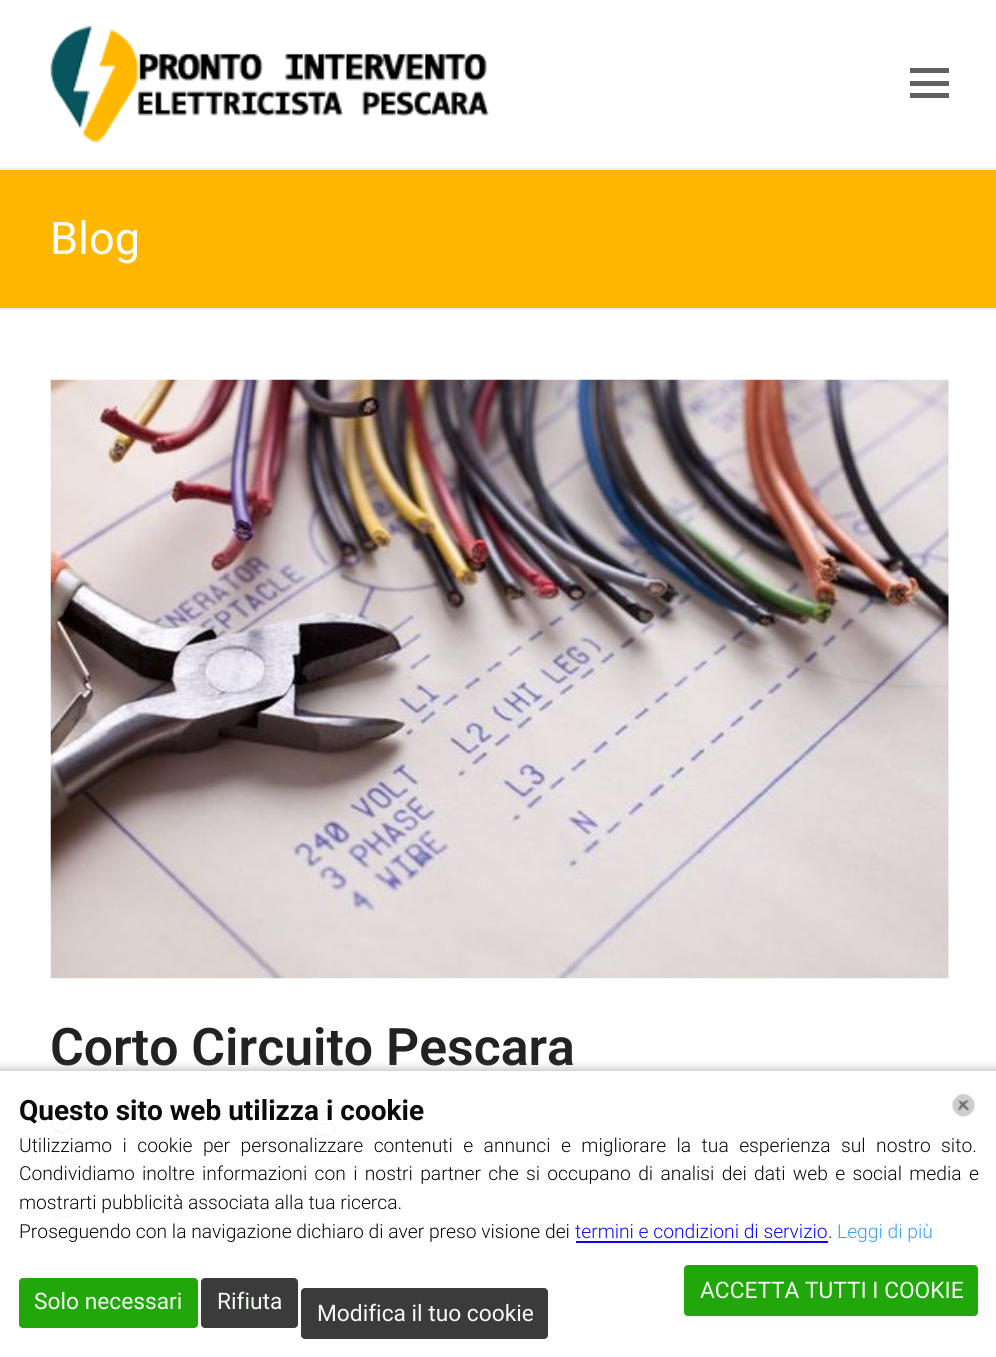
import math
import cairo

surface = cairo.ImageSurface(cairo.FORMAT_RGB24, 996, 1357)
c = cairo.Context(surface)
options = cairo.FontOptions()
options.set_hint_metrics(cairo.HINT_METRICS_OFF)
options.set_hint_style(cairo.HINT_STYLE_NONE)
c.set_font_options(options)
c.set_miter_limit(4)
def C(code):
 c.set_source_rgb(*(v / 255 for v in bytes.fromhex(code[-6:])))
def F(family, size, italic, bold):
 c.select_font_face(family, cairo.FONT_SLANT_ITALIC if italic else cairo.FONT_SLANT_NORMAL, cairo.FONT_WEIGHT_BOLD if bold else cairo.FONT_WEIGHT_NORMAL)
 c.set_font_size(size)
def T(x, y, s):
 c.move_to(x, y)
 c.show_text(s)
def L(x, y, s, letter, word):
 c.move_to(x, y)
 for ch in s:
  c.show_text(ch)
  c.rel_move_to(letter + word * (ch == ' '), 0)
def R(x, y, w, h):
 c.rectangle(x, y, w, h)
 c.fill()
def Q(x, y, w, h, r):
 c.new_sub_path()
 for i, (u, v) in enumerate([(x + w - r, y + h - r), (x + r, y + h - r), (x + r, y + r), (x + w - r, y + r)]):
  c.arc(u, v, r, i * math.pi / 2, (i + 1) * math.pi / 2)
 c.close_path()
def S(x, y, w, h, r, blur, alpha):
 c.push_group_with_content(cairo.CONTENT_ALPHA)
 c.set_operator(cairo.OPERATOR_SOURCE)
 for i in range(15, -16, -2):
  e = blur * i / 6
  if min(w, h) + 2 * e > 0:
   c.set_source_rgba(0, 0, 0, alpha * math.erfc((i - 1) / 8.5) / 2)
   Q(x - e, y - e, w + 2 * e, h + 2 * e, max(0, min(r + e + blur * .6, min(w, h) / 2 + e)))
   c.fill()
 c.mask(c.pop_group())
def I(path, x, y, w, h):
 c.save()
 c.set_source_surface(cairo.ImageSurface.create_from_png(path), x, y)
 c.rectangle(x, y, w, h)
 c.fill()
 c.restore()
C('ffffff')
c.paint()
I('1.png',50,26,439,116)
C('616161')
R(910,81,39,5)
R(910,68,39,5)
R(910,93,39,5)
C('ffb700')
R(0,170,996,138)
C('eeeeee')
R(0,168,996,2)
R(0,308,996,2)
F('Roboto',45,0,0)
C('ffffff')
T(50,254,'Blog')
I('2.png',50,379,899,600)
F('Roboto SemiBold',51.75,0,0)
C('222222')
T(50,1065,'Corto Circuito Pescara')
I('3.png',50,1111,23,24)
I('4.png',313,1110,23,26)
I('5.png',50,1153,25,22)
I('6.png',50,1199,27,23)
c.save()
c.rectangle(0,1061,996,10)
c.clip()
C('8e8e8e')
S(0,1069,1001,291,0,4.5,.58)
c.restore()
I('7.png',952,1090,23,27)
F('Roboto',28,0,1)
C('0a0a0a')
T(19,1120,'Questo sito web utilizza i cookie')
F('Roboto Light',19.25,0,0)
L(19,1152,'Utilizziamo i cookie per personalizzare contenuti e annunci e migliorare la tua esperienza sul nostro sito.',0,5.75)
L(19,1180,'Condividiamo inoltre informazioni con i nostri partner che si occupano di analisi dei dati web e social media e',0,2.6)
T(19,1209,'mostrarti pubblicità associata alla tua ricerca.')
T(19,1238,'Proseguendo con la navigazione dichiaro di aver preso visione dei')
C('0a0aff')
T(575,1238,'termini e condizioni di servizio')
R(576,1241,252,2)
C('0a0a0a')
T(828,1238,'.')
C('3d9ff5')
T(837,1238,'Leggi di più')
c.set_source_rgba(0.094,0.639,0,0.96)
Q(19,1278,179,50,4)
c.fill()
F('Roboto',22.75,0,0)
C('f6fbf5')
T(34,1309,'Solo necessari')
c.set_source_rgba(0.2,0.2,0.2,0.96)
Q(201,1278,97,50,4)
c.fill()
C('f6fbf5')
T(217,1309,'Rifiuta')
c.set_source_rgba(0.094,0.639,0,0.96)
Q(684,1265,294,51,4)
c.fill()
C('f6fbf5')
T(700,1298,'ACCETTA TUTTI I COOKIE')
c.set_source_rgba(0.2,0.2,0.2,0.96)
Q(301,1288,247,51,4)
c.fill()
C('f6fbf5')
T(317,1321,'Modifica il tuo cookie')
surface.write_to_png('o.png')
